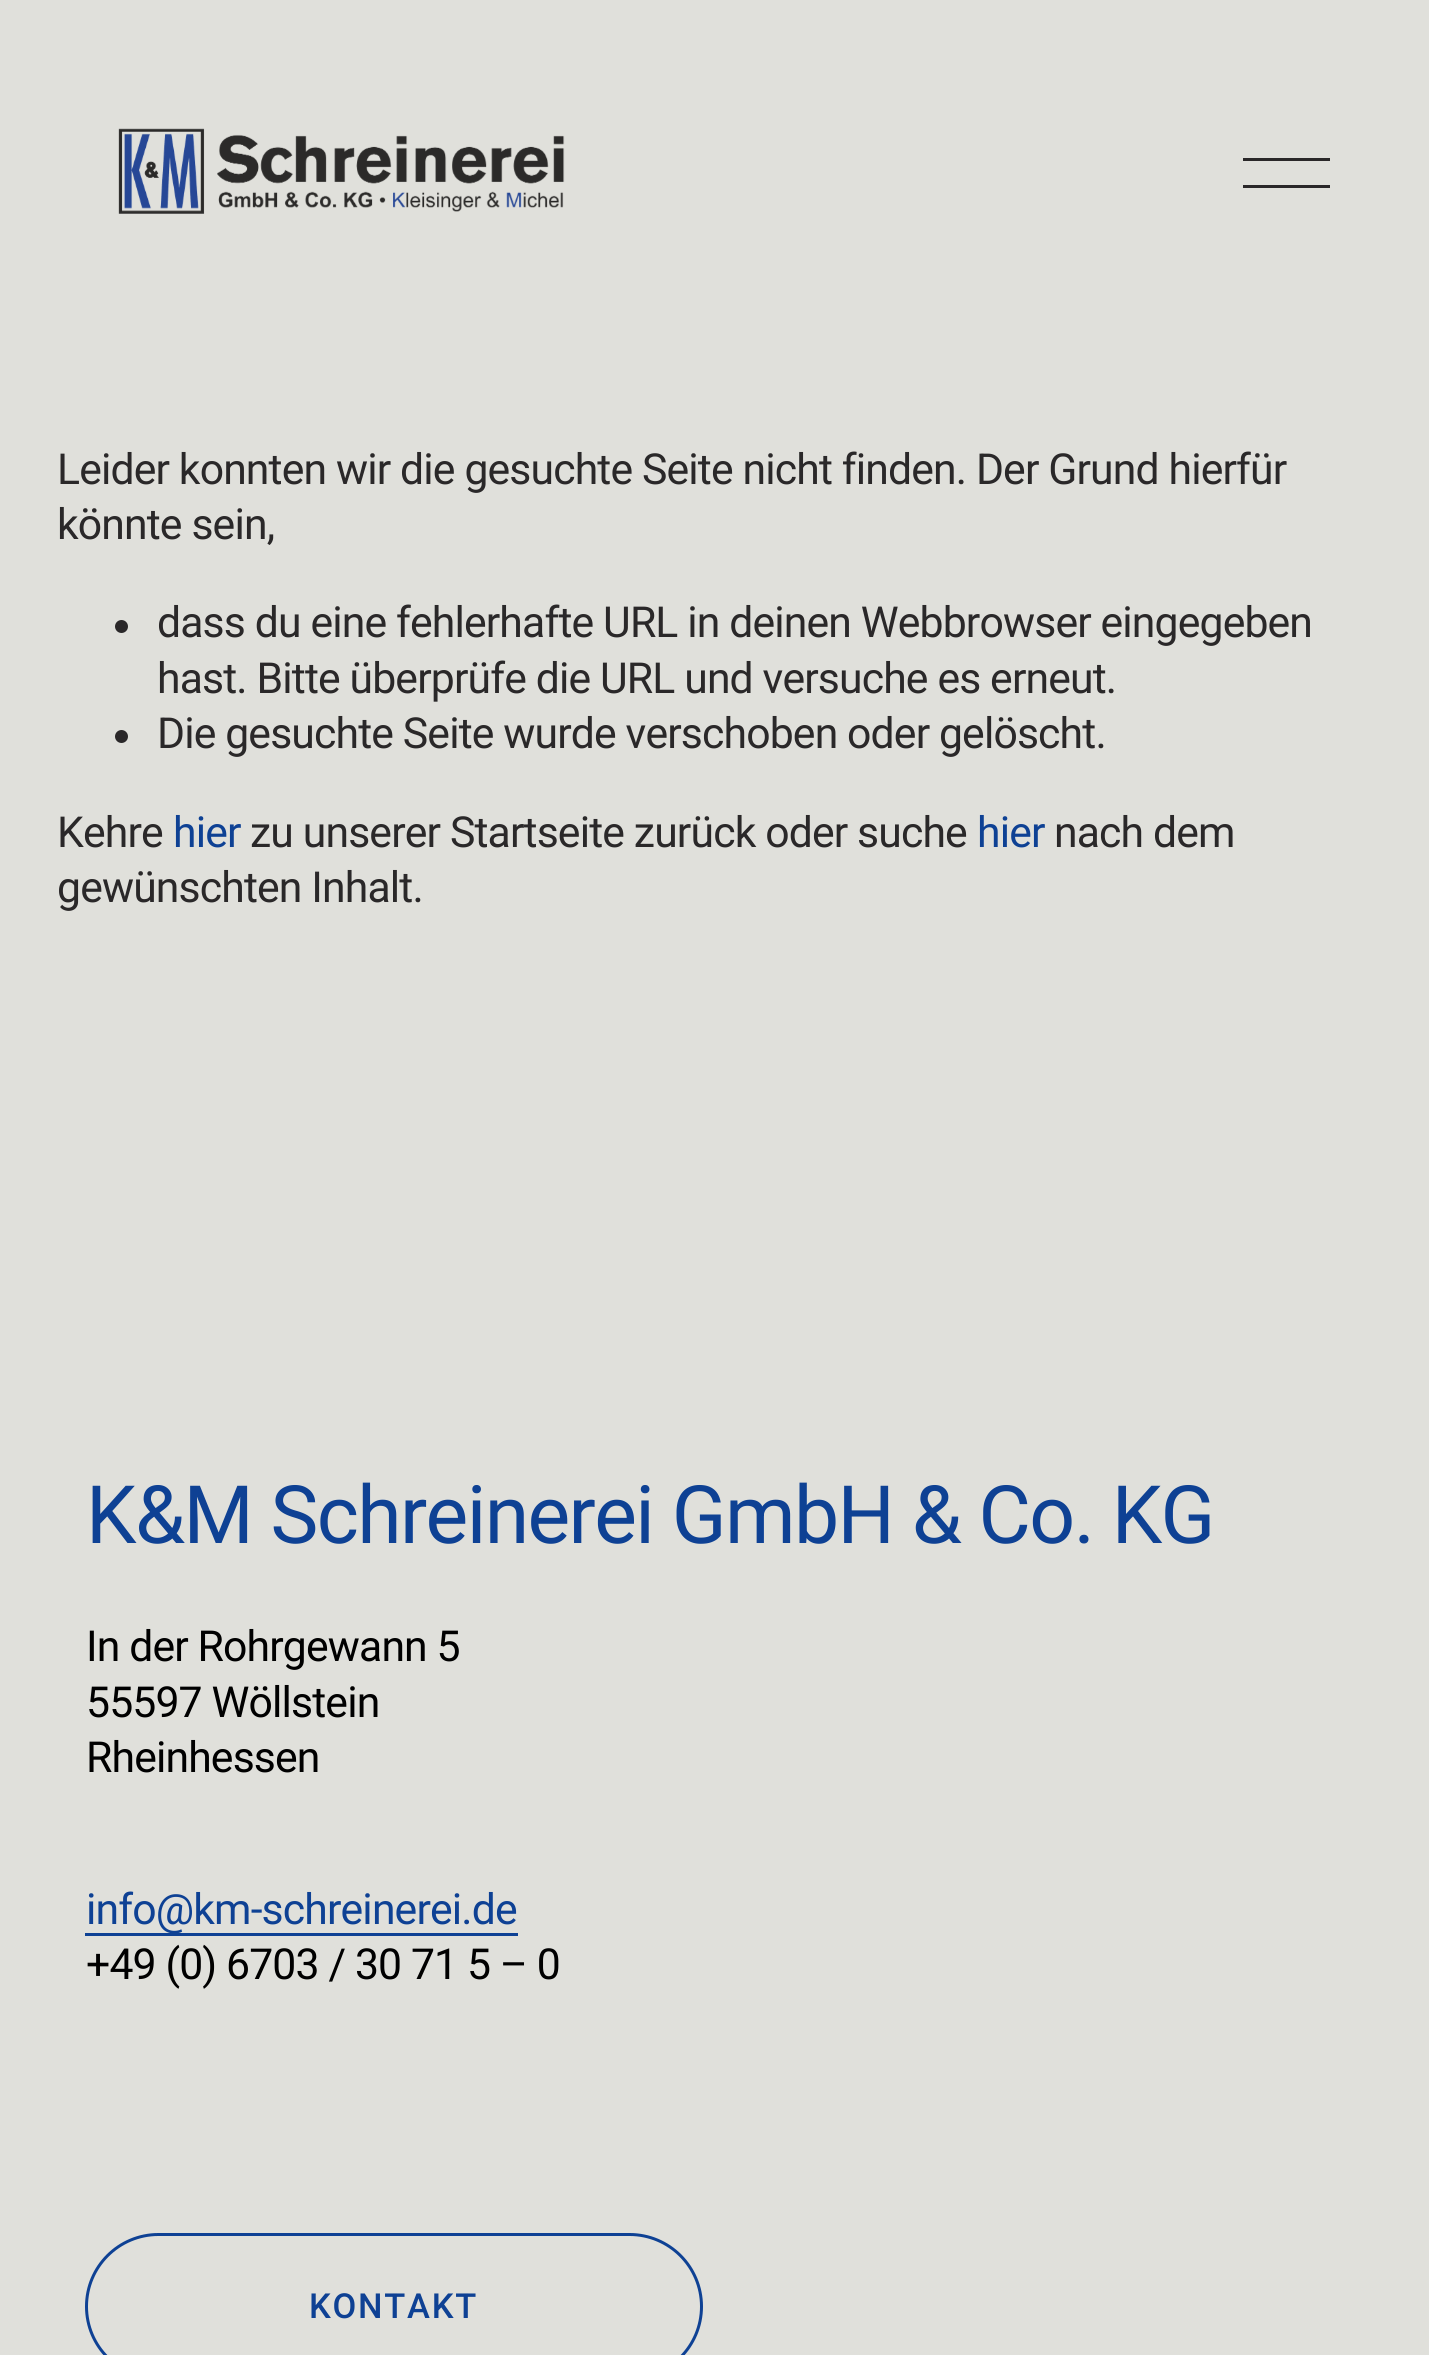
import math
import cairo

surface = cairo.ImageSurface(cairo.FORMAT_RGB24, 1429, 2355)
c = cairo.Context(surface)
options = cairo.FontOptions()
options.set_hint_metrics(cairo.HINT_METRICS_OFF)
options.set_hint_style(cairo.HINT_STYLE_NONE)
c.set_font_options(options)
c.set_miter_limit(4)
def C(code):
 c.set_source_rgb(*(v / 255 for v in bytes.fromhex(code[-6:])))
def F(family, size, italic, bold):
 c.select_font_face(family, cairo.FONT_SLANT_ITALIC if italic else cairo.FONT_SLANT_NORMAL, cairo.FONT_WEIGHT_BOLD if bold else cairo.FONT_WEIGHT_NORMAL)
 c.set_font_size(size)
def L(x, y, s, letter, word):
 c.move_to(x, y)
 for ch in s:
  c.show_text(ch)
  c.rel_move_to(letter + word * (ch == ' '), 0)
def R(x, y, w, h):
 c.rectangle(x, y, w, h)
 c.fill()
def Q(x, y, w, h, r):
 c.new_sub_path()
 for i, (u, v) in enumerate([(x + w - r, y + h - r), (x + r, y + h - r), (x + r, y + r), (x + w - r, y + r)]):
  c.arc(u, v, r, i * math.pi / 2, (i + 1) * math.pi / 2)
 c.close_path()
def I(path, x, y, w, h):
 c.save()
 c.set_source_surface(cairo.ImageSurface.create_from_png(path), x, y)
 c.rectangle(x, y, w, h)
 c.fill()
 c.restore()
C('e0e0db')
c.paint()
I('1.png',118,128,447,86)
C('2a2829')
R(1243,158,87,3)
R(1243,185,87,3)
F('Roboto',42.7,0,0)
L(57,484,'Leider konnten wir die gesuchte Seite nicht finden. Der Grund hierfür',-.85,0)
L(57,539,'könnte sein,',-.85,0)
c.new_path()
c.arc(121.5,626.5,6.5,0,2 * math.pi)
c.fill()
L(157,637,'dass du eine fehlerhafte URL in deinen Webbrowser eingegeben',-.85,0)
L(157,693,'hast. Bitte überprüfe die URL und versuche es erneut.',-.85,0)
c.new_path()
c.arc(121.5,736.5,6.5,0,2 * math.pi)
c.fill()
L(157,748,'Die gesuchte Seite wurde verschoben oder gelöscht.',-.85,0)
L(57,847,'Kehre',-.85,0)
C('0e4194')
L(173,847,'hier',-.85,0)
C('2a2829')
L(250,847,'zu unserer Startseite zurück oder suche',-.85,0)
C('0e4194')
L(977,847,'hier',-.85,0)
C('2a2829')
L(1054,847,'nach dem',-.85,0)
L(57,902,'gewünschten Inhalt.',-.85,0)
F('Roboto',80.5,0,0)
C('0e4194')
L(86,1543,'K&M Schreinerei GmbH & Co. KG',-1.6,0)
F('Roboto',42.7,0,0)
C('000000')
L(86,1661,'In der Rohrgewann 5',-.85,0)
L(86,1717,'55597 Wöllstein',-.85,0)
L(86,1772,'Rheinhessen',-.85,0)
C('0e4194')
R(85,1933,433,3)
L(86,1924,'info@km-schreinerei.de',-.85,0)
C('000000')
L(86,1979,'+49 (0) 6703 / 30 71 5 – 0',-.85,0)
Q(86.5,2234.5,615,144,72)
C('0e4194')
c.set_line_width(3)
c.stroke()
F('Roboto Medium',34.5,0,0)
L(309,2318,'KONTAKT',1.75,0)
surface.write_to_png('o.png')
